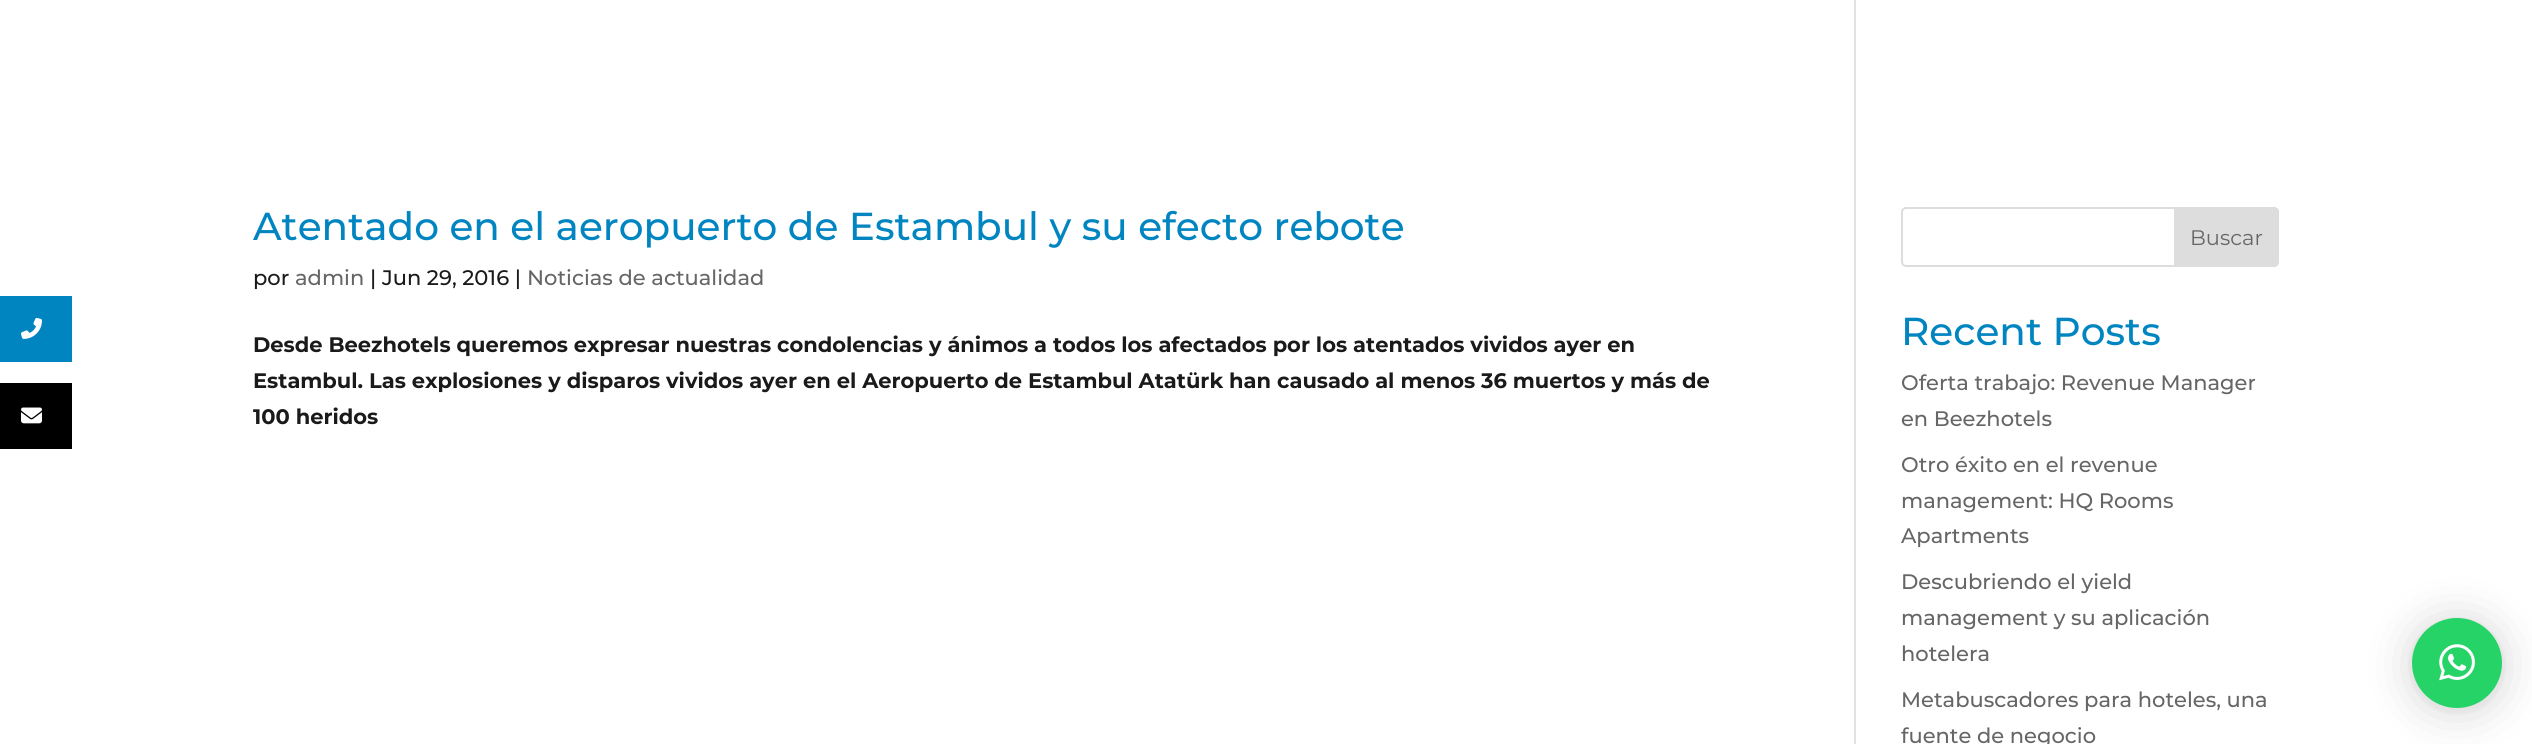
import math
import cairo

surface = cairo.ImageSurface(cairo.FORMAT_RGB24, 2532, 744)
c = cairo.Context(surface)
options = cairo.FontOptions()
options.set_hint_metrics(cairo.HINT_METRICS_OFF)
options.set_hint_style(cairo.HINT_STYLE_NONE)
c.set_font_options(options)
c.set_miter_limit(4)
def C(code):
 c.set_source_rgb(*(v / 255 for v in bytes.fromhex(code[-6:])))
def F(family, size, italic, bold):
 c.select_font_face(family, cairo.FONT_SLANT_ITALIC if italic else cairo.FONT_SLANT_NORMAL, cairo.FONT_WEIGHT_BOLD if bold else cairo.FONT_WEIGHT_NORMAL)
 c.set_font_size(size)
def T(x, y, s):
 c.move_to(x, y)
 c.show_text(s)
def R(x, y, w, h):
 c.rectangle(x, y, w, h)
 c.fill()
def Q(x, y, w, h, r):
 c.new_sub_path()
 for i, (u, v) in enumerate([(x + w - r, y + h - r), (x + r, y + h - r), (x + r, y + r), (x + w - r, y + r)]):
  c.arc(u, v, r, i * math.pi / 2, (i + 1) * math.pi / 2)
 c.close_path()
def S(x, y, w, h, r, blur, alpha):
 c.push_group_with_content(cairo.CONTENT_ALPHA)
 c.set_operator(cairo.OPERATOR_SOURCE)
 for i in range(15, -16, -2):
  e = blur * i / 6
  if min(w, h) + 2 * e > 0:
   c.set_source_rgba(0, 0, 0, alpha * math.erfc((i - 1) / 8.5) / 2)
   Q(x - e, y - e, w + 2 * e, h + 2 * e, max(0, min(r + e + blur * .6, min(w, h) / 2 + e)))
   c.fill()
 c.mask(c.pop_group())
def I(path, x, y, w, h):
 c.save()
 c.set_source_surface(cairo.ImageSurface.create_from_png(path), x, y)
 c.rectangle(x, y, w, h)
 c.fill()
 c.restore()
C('ffffff')
c.paint()
C('0085c1')
R(0,296,72,66)
I('1.png',21,317,21,22)
C('000000')
R(0,383,72,66)
I('2.png',21,407,21,17)
C('e2e2e2')
R(1854,0,2,744)
F('Montserrat Medium',39,0,0)
C('0085c1')
T(253,240,'Atentado en el aeropuerto de Estambul y su efecto rebote')
F('Montserrat Medium',21,0,0)
C('1a1a1a')
T(253,285,'por')
C('666666')
T(295,285,'admin')
C('1a1a1a')
T(370,285,'| Jun 29, 2016 |')
C('666666')
T(527,285,'Noticias de actualidad')
F('Montserrat',21,0,1)
C('1a1a1a')
T(253,352,'Desde Beezhotels queremos expresar nuestras condolencias y ánimos a todos los afectados por los atentados vividos ayer en')
T(253,388,'Estambul. Las explosiones y disparos vividos ayer en el Aeropuerto de Estambul Atatürk han causado al menos 36 muertos y más de')
T(253,424,'100 heridos')
Q(1902,208,376,58,4)
C('dddddd')
c.stroke()
c.new_path()
c.move_to(2175,208)
c.line_to(2274,208)
c.curve_to(2276,208,2278,210,2278,212)
c.line_to(2278,262)
c.curve_to(2278,264,2276,266,2274,266)
c.line_to(2175,266)
c.close_path()
c.fill_preserve()
c.stroke()
F('Montserrat',21,0,0)
C('666666')
T(2190,245,'Buscar')
F('Montserrat Medium',39,0,0)
C('0085c1')
T(1901,345,'Recent Posts')
F('Montserrat Medium',21,0,0)
C('666666')
T(1901,390,'Oferta trabajo: Revenue Manager')
T(1901,426,'en Beezhotels')
T(1901,472,'Otro éxito en el revenue')
T(1901,508,'management: HQ Rooms')
T(1901,543,'Apartments')
T(1901,589,'Descubriendo el yield')
T(1901,625,'management y su aplicación')
T(1901,661,'hotelera')
T(1901,707,'Metabuscadores para hoteles, una')
T(1901,743,'fuente de negocio')
C('000000')
S(2412,621,90,90,45,24,.16)
S(2412,620,90,90,45,4.5,.06)
C('25d366')
c.arc(2457,663,45,0,2 * math.pi)
c.fill()
I('3.png',2439,644,36,37)
surface.write_to_png('o.png')
